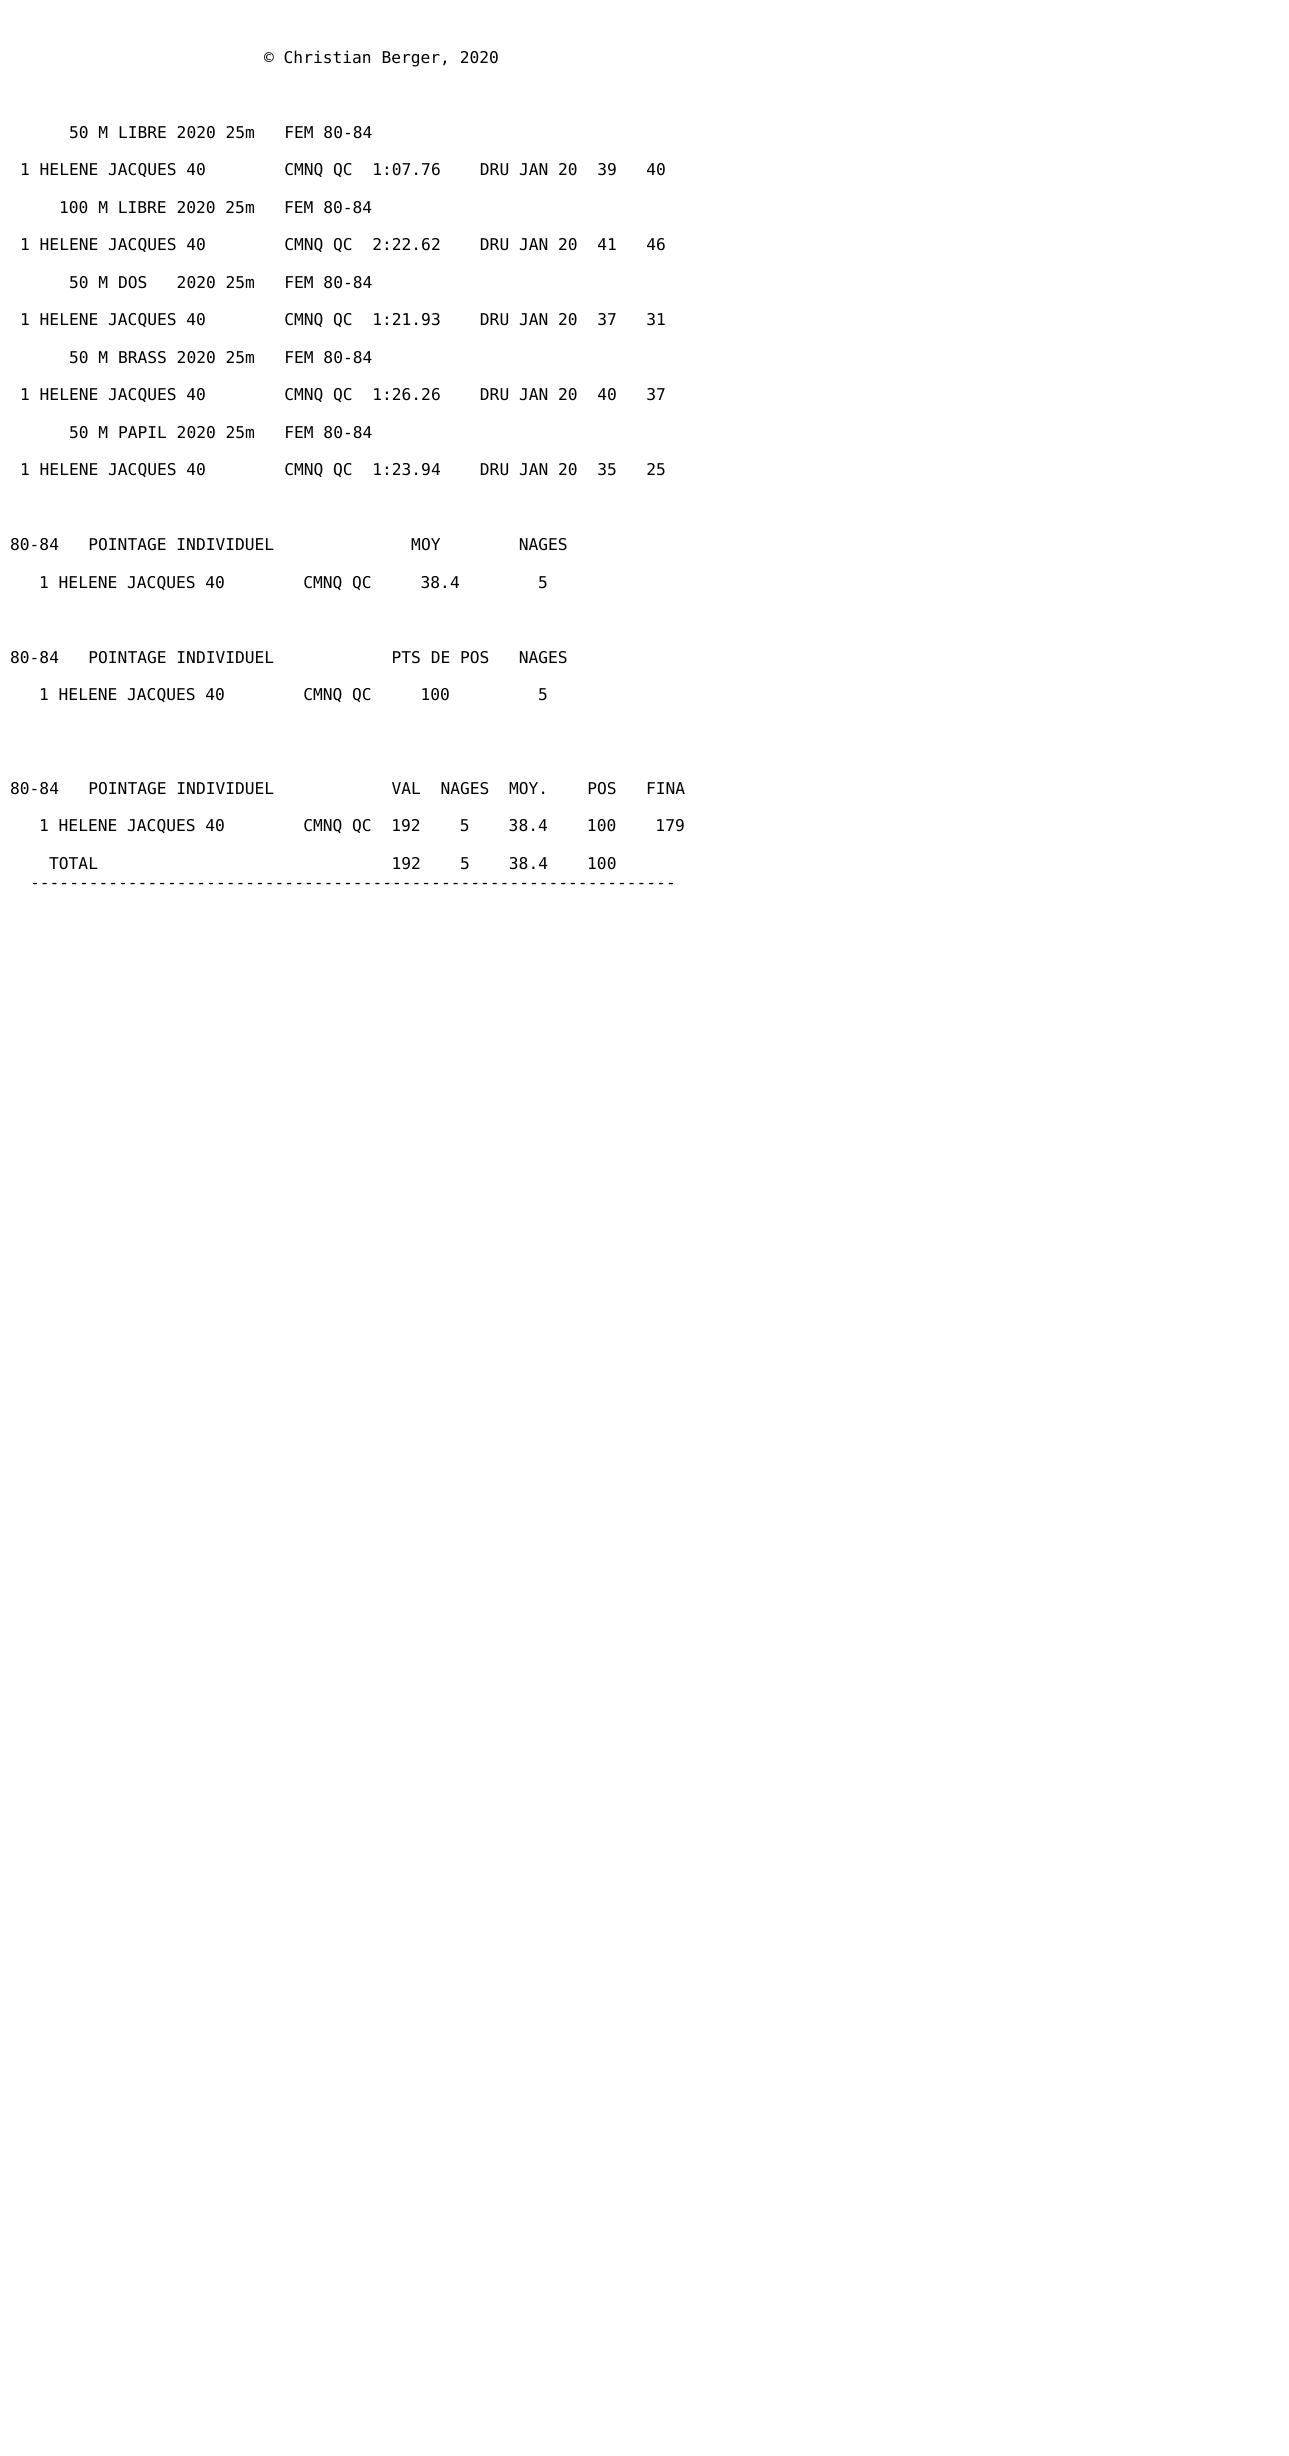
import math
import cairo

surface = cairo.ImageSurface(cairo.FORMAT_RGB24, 1289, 2456)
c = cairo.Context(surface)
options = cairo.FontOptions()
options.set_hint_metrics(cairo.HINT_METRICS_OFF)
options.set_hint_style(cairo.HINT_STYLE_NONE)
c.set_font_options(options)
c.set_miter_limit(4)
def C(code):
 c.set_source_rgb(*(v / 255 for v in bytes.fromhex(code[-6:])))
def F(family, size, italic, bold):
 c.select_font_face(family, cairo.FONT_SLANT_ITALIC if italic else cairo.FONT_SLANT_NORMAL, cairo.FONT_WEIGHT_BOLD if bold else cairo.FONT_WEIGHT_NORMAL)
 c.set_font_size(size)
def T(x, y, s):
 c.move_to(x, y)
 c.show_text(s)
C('ffffff')
c.paint()
F('DejaVu Sans Mono',16.25,0,0)
C('000000')
T(264,63,'© Christian Berger, 2020')
T(69,138,'50 M LIBRE 2020 25m   FEM 80-84')
T(20,175,'1 HELENE JACQUES 40        CMNQ QC  1:07.76    DRU JAN 20  39   40')
T(59,213,'100 M LIBRE 2020 25m   FEM 80-84')
T(20,250,'1 HELENE JACQUES 40        CMNQ QC  2:22.62    DRU JAN 20  41   46')
T(69,288,'50 M DOS   2020 25m   FEM 80-84')
T(20,325,'1 HELENE JACQUES 40        CMNQ QC  1:21.93    DRU JAN 20  37   31')
T(69,363,'50 M BRASS 2020 25m   FEM 80-84')
T(20,400,'1 HELENE JACQUES 40        CMNQ QC  1:26.26    DRU JAN 20  40   37')
T(69,438,'50 M PAPIL 2020 25m   FEM 80-84')
T(20,475,'1 HELENE JACQUES 40        CMNQ QC  1:23.94    DRU JAN 20  35   25')
T(10,550,'80-84   POINTAGE INDIVIDUEL              MOY        NAGES')
T(39,588,'1 HELENE JACQUES 40        CMNQ QC     38.4        5')
T(10,663,'80-84   POINTAGE INDIVIDUEL            PTS DE POS   NAGES')
T(39,700,'1 HELENE JACQUES 40        CMNQ QC     100         5')
T(10,794,'80-84   POINTAGE INDIVIDUEL            VAL  NAGES  MOY.    POS   FINA')
T(39,831,'1 HELENE JACQUES 40        CMNQ QC  192    5    38.4    100    179')
T(49,869,'TOTAL                              192    5    38.4    100')
T(30,888,'------------------------------------------------------------------')
surface.write_to_png('o.png')
